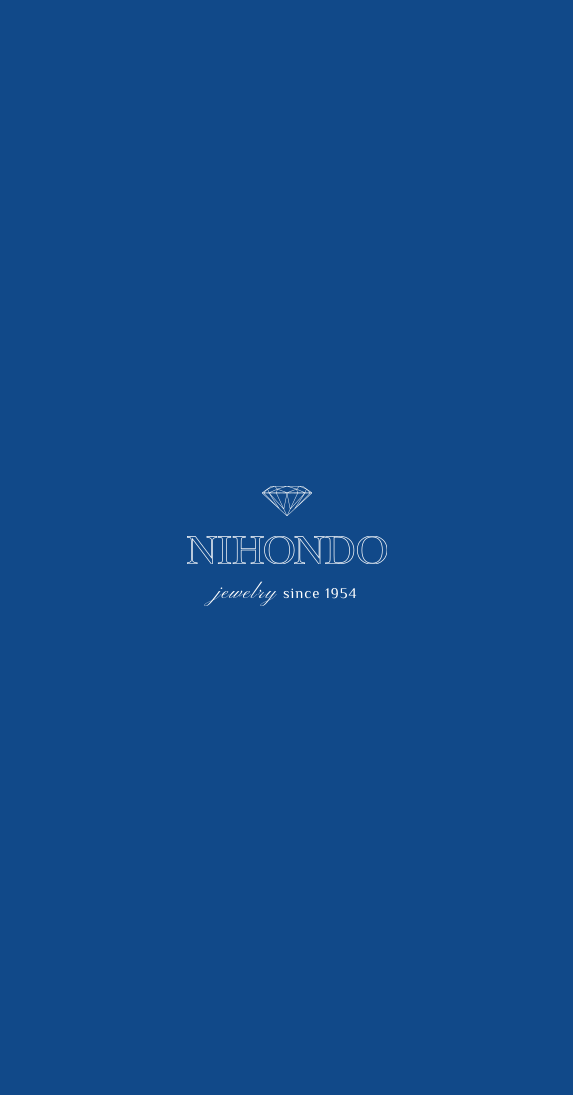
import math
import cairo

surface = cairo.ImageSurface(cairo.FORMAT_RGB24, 573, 1095)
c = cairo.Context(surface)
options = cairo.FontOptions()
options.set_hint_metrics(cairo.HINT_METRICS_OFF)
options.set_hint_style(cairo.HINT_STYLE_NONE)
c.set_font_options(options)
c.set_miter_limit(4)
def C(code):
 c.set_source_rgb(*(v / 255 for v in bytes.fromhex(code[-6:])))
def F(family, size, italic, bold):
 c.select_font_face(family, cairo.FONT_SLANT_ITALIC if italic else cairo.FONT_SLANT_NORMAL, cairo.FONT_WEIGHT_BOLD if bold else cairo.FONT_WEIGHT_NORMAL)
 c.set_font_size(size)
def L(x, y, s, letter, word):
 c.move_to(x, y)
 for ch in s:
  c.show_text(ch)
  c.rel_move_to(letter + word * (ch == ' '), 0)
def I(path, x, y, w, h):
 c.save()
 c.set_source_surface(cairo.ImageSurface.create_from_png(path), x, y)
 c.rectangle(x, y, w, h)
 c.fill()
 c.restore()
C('114989')
c.paint()
I('1.png',262,486,50,30)
I('2.png',187,536,200,28)
F('Pinyon Script',21,0,0)
C('ffffff')
L(216,598,'jewelry',1.5,0)
F('Philosopher',14.75,0,0)
L(283,598,'since 1954',1,0)
surface.write_to_png('o.png')
